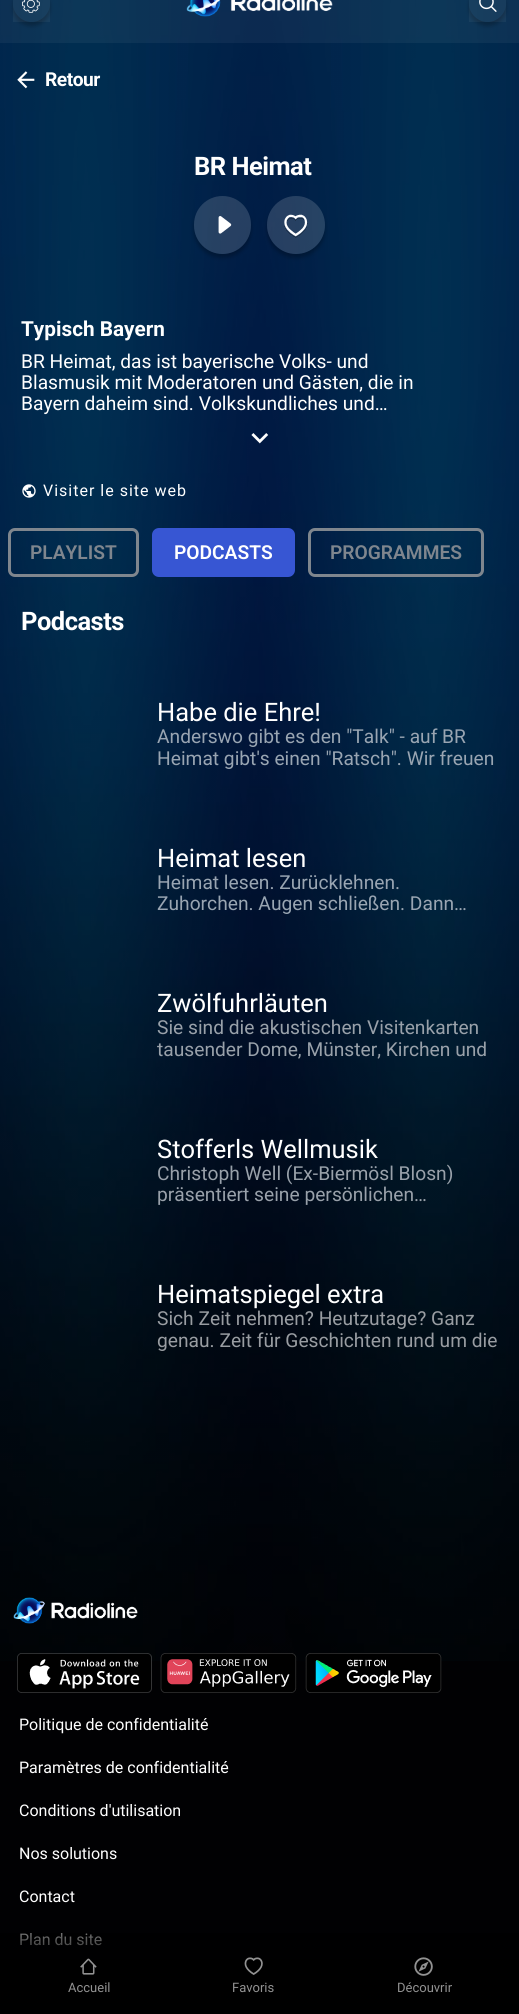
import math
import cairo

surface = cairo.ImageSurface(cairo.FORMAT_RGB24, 519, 2014)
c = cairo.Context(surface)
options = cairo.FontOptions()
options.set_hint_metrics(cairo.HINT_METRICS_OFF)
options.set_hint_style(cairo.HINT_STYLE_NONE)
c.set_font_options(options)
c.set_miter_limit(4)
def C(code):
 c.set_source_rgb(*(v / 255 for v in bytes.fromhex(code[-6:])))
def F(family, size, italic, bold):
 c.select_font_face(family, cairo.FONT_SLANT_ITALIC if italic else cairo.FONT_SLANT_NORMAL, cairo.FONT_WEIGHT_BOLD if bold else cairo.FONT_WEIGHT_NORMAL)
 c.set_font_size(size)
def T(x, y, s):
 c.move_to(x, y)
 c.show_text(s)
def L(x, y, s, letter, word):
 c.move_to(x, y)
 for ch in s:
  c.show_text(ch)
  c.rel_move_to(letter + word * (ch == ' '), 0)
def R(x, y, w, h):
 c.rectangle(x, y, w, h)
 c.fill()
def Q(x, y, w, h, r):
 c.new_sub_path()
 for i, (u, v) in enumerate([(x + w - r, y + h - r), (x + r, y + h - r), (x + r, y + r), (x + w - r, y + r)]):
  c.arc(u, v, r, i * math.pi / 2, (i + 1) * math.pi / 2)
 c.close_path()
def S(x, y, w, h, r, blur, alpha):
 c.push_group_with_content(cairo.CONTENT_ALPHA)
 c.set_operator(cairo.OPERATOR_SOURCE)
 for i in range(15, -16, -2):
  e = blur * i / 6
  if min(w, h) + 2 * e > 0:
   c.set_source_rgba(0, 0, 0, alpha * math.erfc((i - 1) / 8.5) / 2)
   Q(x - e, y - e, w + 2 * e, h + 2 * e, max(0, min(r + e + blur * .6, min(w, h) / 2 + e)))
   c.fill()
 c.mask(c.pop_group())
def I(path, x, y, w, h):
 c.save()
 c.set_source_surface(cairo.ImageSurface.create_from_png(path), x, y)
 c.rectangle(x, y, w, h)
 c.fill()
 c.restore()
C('010103')
c.paint()
I('1.png',0,0,519,1661)
c.set_source_rgba(1,1,1,0.05)
R(0,0,519,43)
c.save()
c.set_fill_rule(cairo.FILL_RULE_EVEN_ODD)
c.new_path()
c.move_to(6,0)
c.line_to(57,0)
c.line_to(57,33)
c.line_to(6,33)
c.close_path()
c.move_to(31.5,-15)
c.curve_to(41.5,-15,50,-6.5,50,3.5)
c.curve_to(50,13.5,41.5,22,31.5,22)
c.curve_to(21.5,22,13,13.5,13,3.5)
c.curve_to(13,-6.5,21.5,-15,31.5,-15)
c.close_path()
c.clip()
C('000000')
S(13,-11,37,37,18.5,2,.25)
c.restore()
R(13,0,37,22)
I('2.png',22,0,18,13)
I('3.png',186,0,147,17)
c.save()
c.set_fill_rule(cairo.FILL_RULE_EVEN_ODD)
c.new_path()
c.move_to(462,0)
c.line_to(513,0)
c.line_to(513,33)
c.line_to(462,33)
c.close_path()
c.move_to(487.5,-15)
c.curve_to(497.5,-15,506,-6.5,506,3.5)
c.curve_to(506,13.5,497.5,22,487.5,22)
c.curve_to(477.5,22,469,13.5,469,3.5)
c.curve_to(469,-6.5,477.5,-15,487.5,-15)
c.close_path()
c.clip()
C('000000')
S(469,-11,37,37,18.5,2,.25)
c.restore()
R(469,0,37,22)
I('4.png',479,0,18,12)
I('5.png',17,71,18,18)
F('Roboto',19.2,0,1)
C('ffffff')
L(45,86,'Retour',-.5,0)
F('Roboto',25.5,0,1)
L(194,175,'BR Heimat',-.5,0)
c.save()
c.set_fill_rule(cairo.FILL_RULE_EVEN_ODD)
c.new_path()
c.move_to(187,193)
c.line_to(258,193)
c.line_to(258,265)
c.line_to(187,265)
c.close_path()
c.move_to(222.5,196)
c.curve_to(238,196,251,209,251,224.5)
c.line_to(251,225.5)
c.curve_to(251,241,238,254,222.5,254)
c.curve_to(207,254,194,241,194,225.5)
c.line_to(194,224.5)
c.curve_to(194,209,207,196,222.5,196)
c.close_path()
c.clip()
C('000000')
S(194,200,57,58,28.5,2,.25)
c.restore()
c.set_source_rgba(1,1,1,0.15)
Q(194,196,57,58,28.5)
c.fill()
I('6.png',218,216,14,18)
c.save()
c.set_fill_rule(cairo.FILL_RULE_EVEN_ODD)
c.new_path()
c.move_to(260,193)
c.line_to(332,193)
c.line_to(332,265)
c.line_to(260,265)
c.close_path()
c.move_to(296,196)
c.curve_to(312,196,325,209,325,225)
c.curve_to(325,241,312,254,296,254)
c.curve_to(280,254,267,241,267,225)
c.curve_to(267,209,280,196,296,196)
c.close_path()
c.clip()
C('000000')
S(267,200,58,58,29,2,.25)
c.restore()
c.arc(296,225,29,0,2 * math.pi)
c.fill()
I('7.png',284,214,24,24)
F('Roboto',20.75,0,1)
C('ffffff')
T(21,336,'Typisch Bayern')
F('Roboto',19.2,0,0)
T(21,368,'BR Heimat, das ist bayerische Volks- und')
T(21,389,'Blasmusik mit Moderatoren und Gästen, die in')
T(21,410,'Bayern daheim sind. Volkskundliches und…')
I('8.png',251,433,18,11)
I('9.png',22,484,14,14)
F('Roboto',16,0,0)
L(43,496,'Visiter le site web',1,0)
Q(9.5,529.5,128,46,5.5)
C('7f868e')
c.set_line_width(3)
c.stroke()
F('Roboto SemiBold',19.2,0,0)
T(30,559,'PLAYLIST')
C('3756d3')
Q(153.5,529.5,140,46,5.5)
c.fill_preserve()
c.stroke()
C('ffffff')
T(174,559,'PODCASTS')
Q(309.5,529.5,173,46,5.5)
C('7f868e')
c.stroke()
T(330,559,'PROGRAMMES')
F('Roboto',25.5,0,1)
C('ffffff')
L(21,630,'Podcasts',-.5,0)
F('Roboto',25.5,0,0)
T(157,721,'Habe die Ehre!')
F('Roboto',19.2,0,0)
C('99a5b2')
T(157,743,'Anderswo gibt es den "Talk" - auf BR')
T(157,765,'Heimat gibt\'s einen "Ratsch". Wir freuen')
F('Roboto',25.5,0,0)
C('ffffff')
T(157,867,'Heimat lesen')
F('Roboto',19.2,0,0)
C('99a5b2')
T(157,889,'Heimat lesen. Zurücklehnen.')
T(157,910,'Zuhorchen. Augen schließen. Dann…')
F('Roboto',25.5,0,0)
C('ffffff')
T(157,1012,'Zwölfuhrläuten')
F('Roboto',19.2,0,0)
C('99a1aa')
T(157,1034,'Sie sind die akustischen Visitenkarten')
T(157,1056,'tausender Dome, Münster, Kirchen und')
F('Roboto',25.5,0,0)
C('ffffff')
T(157,1158,'Stofferls Wellmusik')
F('Roboto',19.2,0,0)
C('99a1aa')
T(157,1180,'Christoph Well (Ex-Biermösl Blosn)')
T(157,1201,'präsentiert seine persönlichen…')
F('Roboto',25.5,0,0)
C('ffffff')
T(157,1303,'Heimatspiegel extra')
F('Roboto',19.2,0,0)
C('999da2')
T(157,1325,'Sich Zeit nehmen? Heutzutage? Ganz')
T(157,1347,'genau. Zeit für Geschichten rund um die')
I('10.png',13,1597,125,27)
I('11.png',17,1653,135,40)
I('12.png',160,1653,137,40)
I('13.png',305,1653,137,40)
F('Roboto',16,0,0)
C('ffffff')
T(19,1730,'Politique de confidentialité')
T(19,1773,'Paramètres de confidentialité')
T(19,1816,'Conditions d\'utilisation')
T(19,1859,'Nos solutions')
T(19,1902,'Contact')
T(19,1945,'Plan du site')
gradient = cairo.LinearGradient(260,1902,260,2014)
gradient.add_color_stop_rgba(0,0,0,0,0)
gradient.add_color_stop_rgba(.03,0,0,0,.01)
gradient.add_color_stop_rgba(.06,0,0,0,.05)
gradient.add_color_stop_rgba(.09,0,0,0,.11)
gradient.add_color_stop_rgba(.12,0,0,0,.18)
gradient.add_color_stop_rgba(.15,0,0,0,.26)
gradient.add_color_stop_rgba(.19,0,0,0,.35)
gradient.add_color_stop_rgba(.23,0,0,0,.45)
gradient.add_color_stop_rgba(.28,0,0,0,.55)
gradient.add_color_stop_rgba(.34,0,0,0,.65)
gradient.add_color_stop_rgba(.41,0,0,0,.74)
gradient.add_color_stop_rgba(.49,0,0,0,.82)
gradient.add_color_stop_rgba(.59,0,0,0,.89)
gradient.add_color_stop_rgba(.71,0,0,0,.95)
gradient.add_color_stop_rgba(.84,0,0,0,.99)
gradient.add_color_stop_rgba(1,0,0,0,1)
c.set_source(gradient)
R(0,1933,519,81)
I('14.png',80,1958,17,17)
F('Roboto',13,0,0)
C('929292')
T(68,1992,'Accueil')
I('15.png',244,1957,19,18)
T(232,1992,'Favoris')
I('16.png',414,1957,19,19)
T(397,1992,'Découvrir')
surface.write_to_png('o.png')
